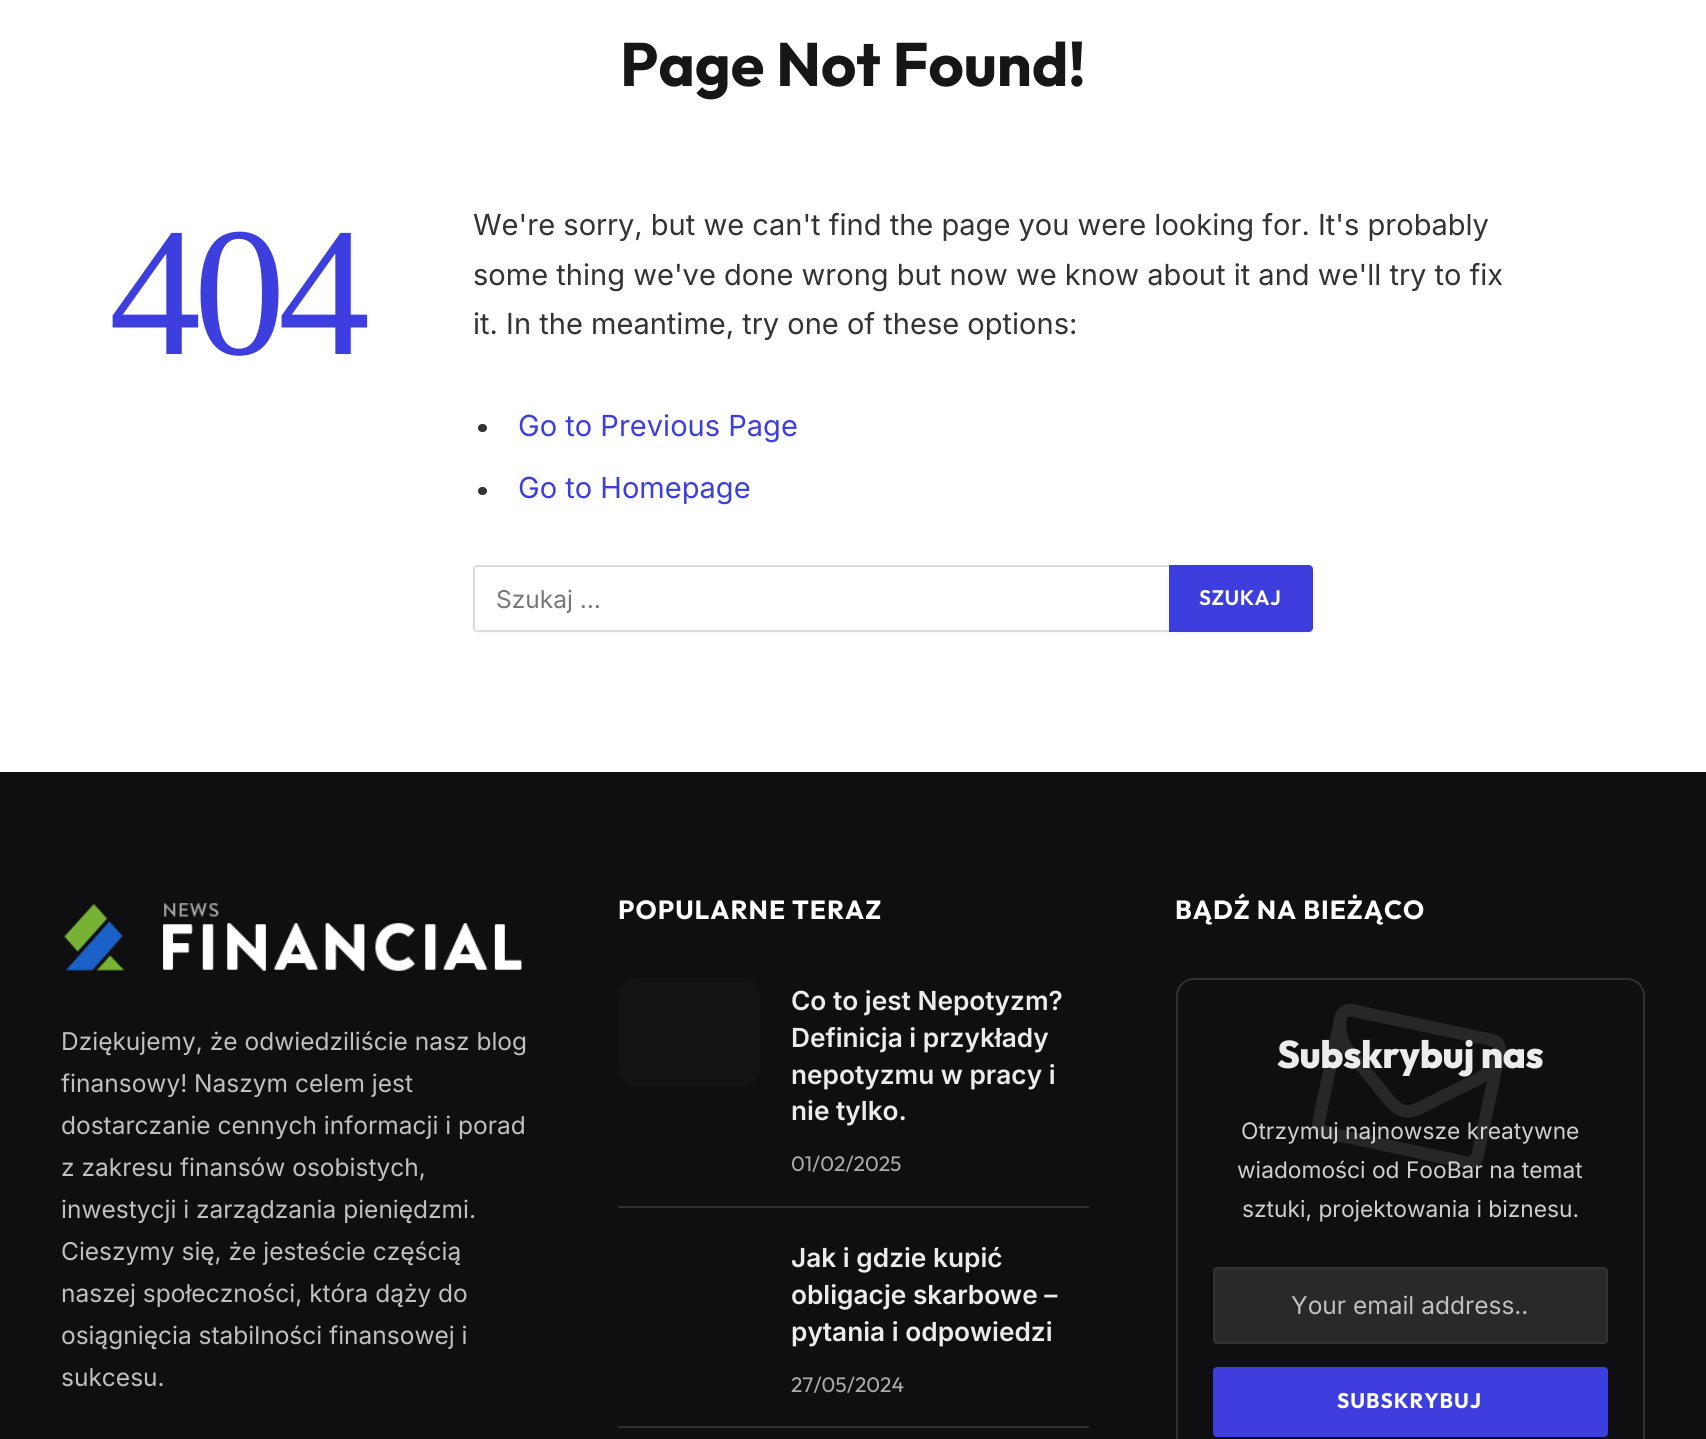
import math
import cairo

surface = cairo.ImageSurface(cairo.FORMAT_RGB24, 1706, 1439)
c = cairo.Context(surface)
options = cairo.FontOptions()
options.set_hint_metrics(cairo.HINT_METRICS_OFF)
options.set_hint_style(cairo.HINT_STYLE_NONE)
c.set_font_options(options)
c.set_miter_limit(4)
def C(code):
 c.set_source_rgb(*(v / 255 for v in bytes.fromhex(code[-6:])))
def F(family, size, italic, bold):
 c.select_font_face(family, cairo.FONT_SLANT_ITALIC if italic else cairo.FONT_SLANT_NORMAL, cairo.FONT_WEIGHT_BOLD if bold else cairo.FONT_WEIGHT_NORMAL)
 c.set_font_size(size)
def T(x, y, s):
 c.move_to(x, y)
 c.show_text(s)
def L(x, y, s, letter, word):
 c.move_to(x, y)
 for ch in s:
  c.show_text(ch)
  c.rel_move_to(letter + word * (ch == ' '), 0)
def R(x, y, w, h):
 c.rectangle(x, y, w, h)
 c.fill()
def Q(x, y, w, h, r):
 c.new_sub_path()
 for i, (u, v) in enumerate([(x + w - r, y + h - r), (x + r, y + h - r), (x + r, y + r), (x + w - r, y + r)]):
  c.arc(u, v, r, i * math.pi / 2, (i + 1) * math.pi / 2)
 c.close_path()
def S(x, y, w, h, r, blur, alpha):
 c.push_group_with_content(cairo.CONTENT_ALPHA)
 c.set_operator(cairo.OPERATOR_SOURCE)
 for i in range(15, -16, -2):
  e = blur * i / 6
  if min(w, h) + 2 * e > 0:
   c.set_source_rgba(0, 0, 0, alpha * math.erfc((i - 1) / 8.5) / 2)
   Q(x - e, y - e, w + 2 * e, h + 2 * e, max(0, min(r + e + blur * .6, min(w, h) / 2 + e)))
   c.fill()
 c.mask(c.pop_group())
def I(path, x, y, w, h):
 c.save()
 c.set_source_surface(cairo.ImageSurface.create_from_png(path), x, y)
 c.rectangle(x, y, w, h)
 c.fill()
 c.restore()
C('ffffff')
c.paint()
F('Outfit',61.25,0,1)
C('161616')
T(620,86,'Page Not Found!')
F('Liberation Serif',184,0,0)
C('3c3fde')
L(109,354,'404',-7.5,0)
F('Inter',29.05,0,0)
C('333333')
T(473,235,'We\'re sorry, but we can\'t find the page you were looking for. It\'s probably')
T(473,285,'some thing we\'ve done wrong but now we know about it and we\'ll try to fix')
T(473,334,'it. In the meantime, try one of these options:')
Q(478,424,9,8,4)
c.fill()
C('3c3fde')
T(518,436,'Go to Previous Page')
C('333333')
Q(478,487,9,8,4)
c.fill()
C('3c3fde')
T(518,498,'Go to Homepage')
C('000000')
S(480,576,686,52,0,6,.1)
C('ffffff')
Q(474,566,698,65,3)
c.fill_preserve()
C('dddddd')
c.stroke()
F('Inter',24.5,0,0)
C('777777')
T(496,608,'Szukaj …')
C('000000')
S(1176,576,130,52,0,6,.16)
C('3c3fde')
c.new_path()
c.move_to(1169,565)
c.line_to(1309,565)
c.curve_to(1311,565,1313,567,1313,569)
c.line_to(1313,628)
c.curve_to(1313,630,1311,632,1309,632)
c.line_to(1169,632)
c.close_path()
c.fill()
F('Outfit SemiBold',21,0,0)
C('ffffff')
L(1199,605,'SZUKAJ',.5,0)
C('0f0f11')
R(0,772,1706,667)
I('1.png',64,903,458,68)
F('Inter',24.5,0,0)
C('c0c0c0')
T(61,1050,'Dziękujemy, że odwiedziliście nasz blog')
T(61,1092,'finansowy! Naszym celem jest')
T(61,1134,'dostarczanie cennych informacji i porad')
T(61,1176,'z zakresu finansów osobistych,')
T(61,1218,'inwestycji i zarządzania pieniędzmi.')
T(61,1260,'Cieszymy się, że jesteście częścią')
T(61,1302,'naszej społeczności, która dąży do')
T(61,1344,'osiągnięcia stabilności finansowej i')
T(61,1386,'sukcesu.')
F('Outfit',26.25,0,1)
C('ffffff')
L(618,919,'POPULARNE TERAZ',1,0)
C('131314')
Q(618,978,142,109,18)
c.fill()
F('Inter SemiBold',26.25,0,0)
C('ececec')
T(791,1010,'Co to jest Nepotyzm?')
T(791,1047,'Definicja i przykłady')
T(791,1084,'nepotyzmu w pracy i')
T(791,1120,'nie tylko.')
F('Outfit',21,0,0)
C('ababac')
T(791,1171,'01/02/2025')
C('2e2e30')
R(618,1206,471,2)
F('Inter SemiBold',26.25,0,0)
C('ececec')
T(791,1267,'Jak i gdzie kupić')
T(791,1304,'obligacje skarbowe –')
T(791,1341,'pytania i odpowiedzi')
F('Outfit',21,0,0)
C('ababac')
T(791,1392,'27/05/2024')
C('2e2e30')
R(618,1426,471,2)
F('Outfit',26.25,0,1)
C('ffffff')
L(1175,919,'BĄDŹ NA BIEŻĄCO',1,0)
Q(1177,979,467,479,17)
C('303030')
c.stroke()
F('Outfit ExtraBold',38.5,0,0)
C('ececec')
L(1277,1068,'Subskrybuj nas',-.4,0)
F('Inter',22.75,0,0)
C('cfcfcf')
T(1241,1139,'Otrzymuj najnowsze kreatywne')
T(1237,1178,'wiadomości od FooBar na temat')
I('2.png',1312,1004,194,165)
T(1242,1217,'sztuki, projektowania i biznesu.')
C('292929')
Q(1214,1268,393,75,3)
c.fill_preserve()
C('333333')
c.stroke()
F('Inter',24.5,0,0)
C('c0c0c0')
T(1291,1314,'Your email address..')
C('3c3fde')
Q(1213,1367,395,70,4)
c.fill()
F('Outfit',21,0,1)
C('ffffff')
L(1337,1408,'SUBSKRYBUJ',1,0)
surface.write_to_png('o.png')
